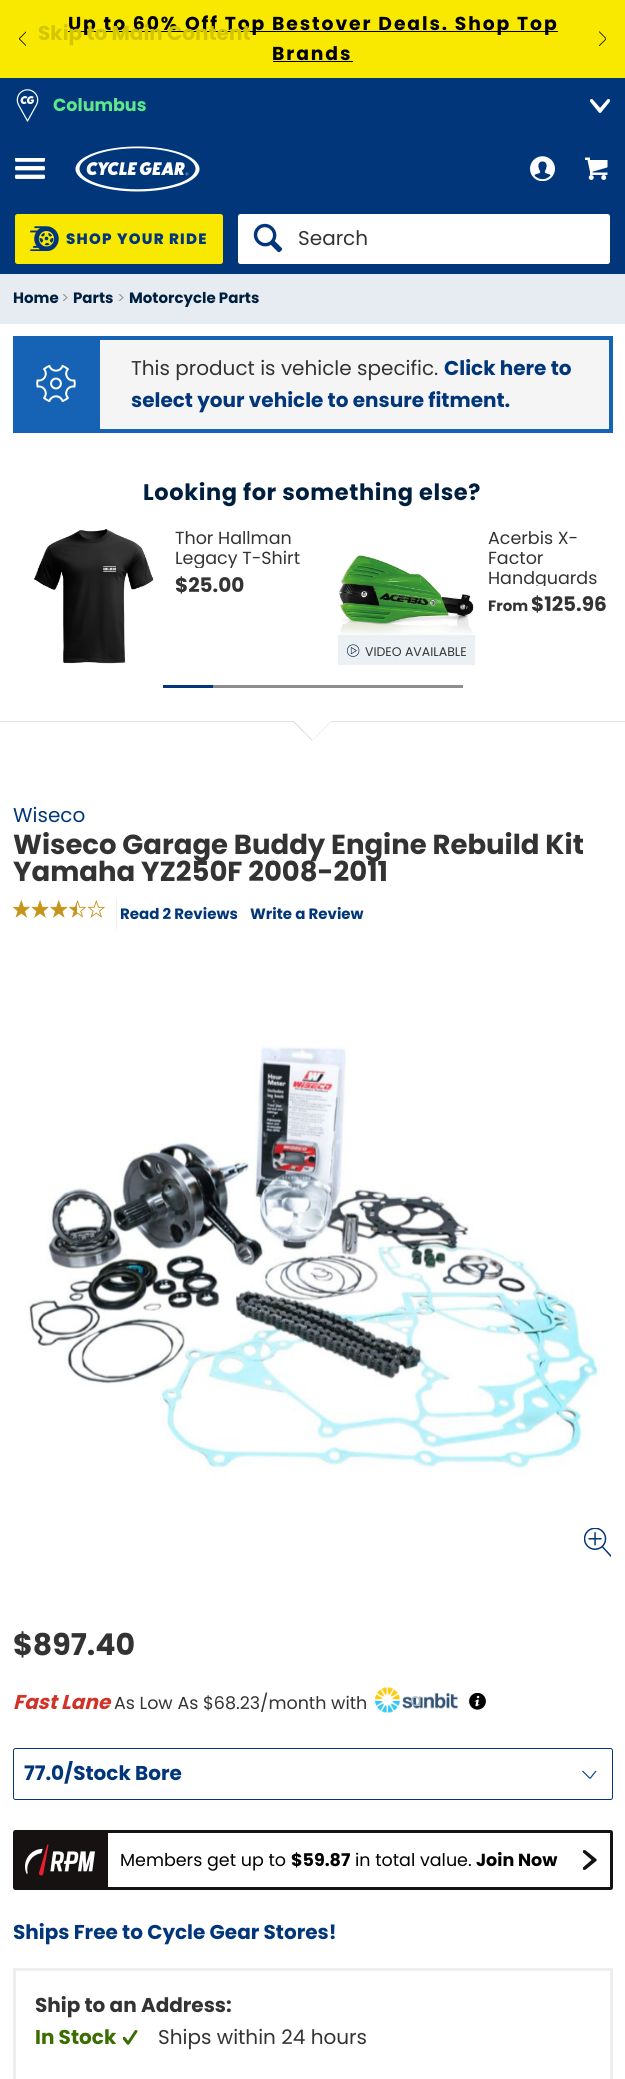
import math
import cairo

surface = cairo.ImageSurface(cairo.FORMAT_RGB24, 625, 2079)
c = cairo.Context(surface)
options = cairo.FontOptions()
options.set_hint_metrics(cairo.HINT_METRICS_OFF)
options.set_hint_style(cairo.HINT_STYLE_NONE)
c.set_font_options(options)
c.set_miter_limit(4)
def C(code):
 c.set_source_rgb(*(v / 255 for v in bytes.fromhex(code[-6:])))
def F(family, size, italic, bold):
 c.select_font_face(family, cairo.FONT_SLANT_ITALIC if italic else cairo.FONT_SLANT_NORMAL, cairo.FONT_WEIGHT_BOLD if bold else cairo.FONT_WEIGHT_NORMAL)
 c.set_font_size(size)
def T(x, y, s):
 c.move_to(x, y)
 c.show_text(s)
def L(x, y, s, letter, word):
 c.move_to(x, y)
 for ch in s:
  c.show_text(ch)
  c.rel_move_to(letter + word * (ch == ' '), 0)
def R(x, y, w, h):
 c.rectangle(x, y, w, h)
 c.fill()
def Q(x, y, w, h, r):
 c.new_sub_path()
 for i, (u, v) in enumerate([(x + w - r, y + h - r), (x + r, y + h - r), (x + r, y + r), (x + w - r, y + r)]):
  c.arc(u, v, r, i * math.pi / 2, (i + 1) * math.pi / 2)
 c.close_path()
def I(path, x, y, w, h):
 c.save()
 c.set_source_surface(cairo.ImageSurface.create_from_png(path), x, y)
 c.rectangle(x, y, w, h)
 c.fill()
 c.restore()
C('ffffff')
c.paint()
C('f9e900')
R(0,0,625,78)
I('1.png',19,31,7,15)
C('000000')
R(68,31,490,1)
F('Poppins',18.75,0,1)
L(68,30,'Up to 60% Off Top Bestover Deals. Shop Top',1.9,0)
L(272,60,'Brands',1.9,0)
R(273,61,80,1)
I('2.png',599,31,7,15)
F('Poppins',20,0,1)
C('d3c601')
T(38,40,'Skip to Main Content')
C('02367b')
R(0,78,625,196)
I('3.png',16,89,23,33)
F('Poppins',17.5,0,1)
C('5ee88c')
T(53,111,'Columbus')
I('4.png',590,99,20,14)
I('5.png',15,158,30,21)
I('6.png',75,146,125,46)
I('7.png',530,156,25,25)
I('8.png',585,157,23,23)
C('f9e900')
Q(16.5,215.5,205,47,1)
c.fill_preserve()
c.set_line_width(3)
c.stroke()
I('9.png',30,226,29,25)
F('Poppins ExtraBold',15,0,0)
C('02367b')
L(66,244,'SHOP YOUR RIDE',1.25,0)
C('ffffff')
Q(238,214,372,50,2.5)
c.fill()
I('10.png',253,223,30,30)
F('Poppins',20,0,0)
C('333333')
T(298,245,'Search')
C('e6ecf1')
R(0,274,625,50)
F('Poppins',15,0,1)
C('001f3f')
T(13,303,'Home')
F('Poppins',15,0,0)
C('999999')
T(61,303,'>')
F('Poppins',15,0,1)
C('001f3f')
T(73,303,'Parts')
F('Poppins',15,0,0)
C('999999')
T(117,303,'>')
F('Poppins',15,0,1)
C('001f3f')
T(129,303,'Motorcycle Parts')
C('1663b5')
R(13,336,87,97)
I('11.png',36,365,40,37)
C('f5f5f5')
R(100,340,509,89)
C('1663b5')
R(100,336,513,4)
R(609,336,4,97)
R(100,429,513,4)
F('Poppins',20,0,0)
C('333333')
T(131,375,'This product is vehicle specific.')
F('Poppins',20,0,1)
C('02367b')
T(444,375,'Click here to')
T(131,407,'select your vehicle to ensure fitment.')
C('e3e2e2')
R(0,721,625,1)
F('Poppins',22.5,0,1)
C('001f3f')
L(143,500,'Looking for something else?',.6,0)
I('12.png',34,528,120,136)
F('Poppins',17.5,0,0)
C('333333')
T(175,544,'Thor Hallman')
c.save()
c.rectangle(175,528,138,40)
c.clip()
T(175,564,'Legacy T-Shirt')
c.restore()
F('Poppins',20,0,1)
T(175,592,'$25.00')
F('Poppins',17.5,0,0)
T(488,544,'Acerbis X-')
T(488,564,'Factor')
c.save()
c.rectangle(488,528,137,58)
c.clip()
T(488,584,'Handguards')
c.restore()
F('Poppins',15,0,1)
T(488,611,'From')
F('Poppins',20,0,1)
T(531,611,'$125.96')
I('14.png',338,555,136,81)
c.set_source_rgba(0.902,0.925,0.945,0.8)
R(338,635,137,30)
I('13.png',346,644,14,13)
F('Poppins',12.5,0,0)
C('333333')
T(365,656,'VIDEO AVAILABLE')
C('8f8e8d')
R(213,685,250,3)
C('02367b')
R(163,685,50,3)
C('e3e2e2')
c.new_path()
c.move_to(292,721)
c.line_to(332,721)
c.line_to(312,741)
c.close_path()
c.fill()
C('ffffff')
c.new_path()
c.move_to(294,721)
c.line_to(331,721)
c.line_to(312.5,740)
c.close_path()
c.fill()
F('Poppins',20,0,0)
C('02367b')
T(13,822,'Wiseco')
F('Poppins',27.5,0,1)
C('333333')
T(13,854,'Wiseco Garage Buddy Engine Rebuild Kit')
T(13,881,'Yamaha YZ250F 2008-2011')
I('15.png',13,900,92,18)
C('eeeeee')
R(116,899,1,30)
F('Poppins',15,0,1)
C('02367b')
T(120,919,'Read 2 Reviews')
T(250,919,'Write a Review')
I('16.png',27,1046,573,432)
I('17.png',584,1528,27,30)
F('Poppins',30,0,1)
C('333333')
T(13,1655,'$897.40')
F('Poppins',20,1,1)
C('d13329')
T(13,1709,'Fast Lane')
F('Poppins',17.5,0,0)
C('333333')
T(114,1709,'As Low As $68.23/month with')
I('18.png',375,1687,83,26)
C('a9b6c5')
T(410,1706,'a')
I('19.png',469,1693,17,17)
c.new_path()
c.move_to(582.5,1771)
c.line_to(590,1778.5)
c.move_to(590,1778.5)
c.line_to(596,1771)
C('0a4783')
c.set_line_width(1.2)
c.stroke()
Q(13.5,1748.5,599,51,2)
C('02367b')
c.set_line_width(1)
c.stroke()
F('Poppins',20,0,1)
T(24,1780,'77.0/Stock Bore')
Q(14.5,1831.5,597,57,1)
C('151211')
c.set_line_width(3)
c.stroke()
R(16,1833,92,54)
I('20.png',25,1844,70,32)
F('Poppins',17.5,0,0)
C('000000')
T(120,1866,'Members get up to')
F('Poppins',17.5,0,1)
T(291,1866,'$59.87')
F('Poppins',17.5,0,0)
T(355,1866,'in total value.')
F('Poppins',17.5,0,1)
T(476,1866,'Join Now')
I('21.png',583,1850,14,20)
F('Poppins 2',20,0,1)
C('02367b')
T(13,1939,'Ships Free to Cycle Gear Stores!')
c.rectangle(14.5,1969.5,597,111)
C('eeeeee')
c.stroke()
F('Poppins',20,0,1)
C('333333')
T(35,2012,'Ship to an Address:')
C('3b6d00')
T(35,2044,'In Stock')
I('22.png',123,2030,15,15)
F('Poppins',20,0,0)
C('333333')
T(158,2044,'Ships within 24 hours')
surface.write_to_png('o.png')
